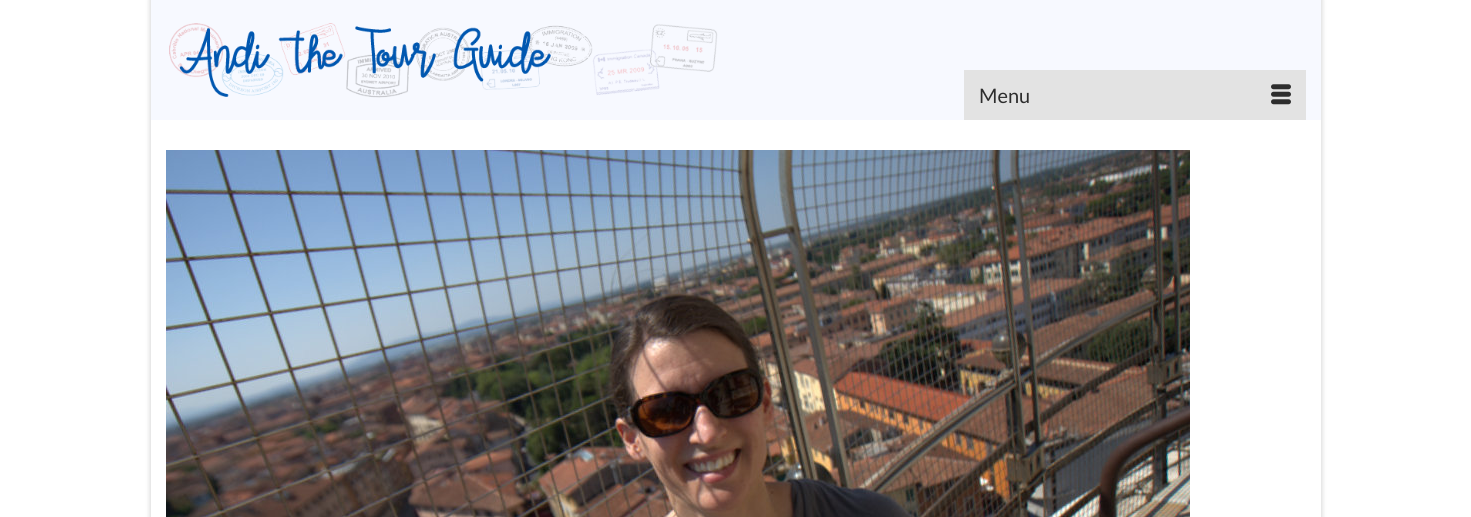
import math
import cairo

surface = cairo.ImageSurface(cairo.FORMAT_RGB24, 1471, 517)
c = cairo.Context(surface)
options = cairo.FontOptions()
options.set_hint_metrics(cairo.HINT_METRICS_OFF)
options.set_hint_style(cairo.HINT_STYLE_NONE)
c.set_font_options(options)
c.set_miter_limit(4)
def C(code):
 c.set_source_rgb(*(v / 255 for v in bytes.fromhex(code[-6:])))
def F(family, size, italic, bold):
 c.select_font_face(family, cairo.FONT_SLANT_ITALIC if italic else cairo.FONT_SLANT_NORMAL, cairo.FONT_WEIGHT_BOLD if bold else cairo.FONT_WEIGHT_NORMAL)
 c.set_font_size(size)
def T(x, y, s):
 c.move_to(x, y)
 c.show_text(s)
def R(x, y, w, h):
 c.rectangle(x, y, w, h)
 c.fill()
def Q(x, y, w, h, r):
 c.new_sub_path()
 for i, (u, v) in enumerate([(x + w - r, y + h - r), (x + r, y + h - r), (x + r, y + r), (x + w - r, y + r)]):
  c.arc(u, v, r, i * math.pi / 2, (i + 1) * math.pi / 2)
 c.close_path()
def S(x, y, w, h, r, blur, alpha):
 c.push_group_with_content(cairo.CONTENT_ALPHA)
 c.set_operator(cairo.OPERATOR_SOURCE)
 for i in range(15, -16, -2):
  e = blur * i / 6
  if min(w, h) + 2 * e > 0:
   c.set_source_rgba(0, 0, 0, alpha * math.erfc((i - 1) / 8.5) / 2)
   Q(x - e, y - e, w + 2 * e, h + 2 * e, max(0, min(r + e + blur * .6, min(w, h) / 2 + e)))
   c.fill()
 c.mask(c.pop_group())
def I(path, x, y, w, h):
 c.save()
 c.set_source_surface(cairo.ImageSurface.create_from_png(path), x, y)
 c.rectangle(x, y, w, h)
 c.fill()
 c.restore()
C('ffffff')
c.paint()
c.save()
c.set_fill_rule(cairo.FILL_RULE_EVEN_ODD)
c.new_path()
c.move_to(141,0)
c.line_to(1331,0)
c.line_to(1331,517)
c.line_to(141,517)
c.close_path()
c.move_to(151,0)
c.line_to(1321,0)
c.line_to(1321,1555)
c.line_to(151,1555)
c.close_path()
c.clip()
C('000000')
S(150,-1,1172,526,0,2.5,.16)
c.restore()
C('f7f9ff')
R(151,0,1170,120)
I('1.png',169,23,549,75)
C('e3e3e3')
R(964,70,342,50)
F('Lato',20,0,0)
C('2d2d2d')
T(979,103,'Menu')
I('2.png',1271,84,20,21)
I('3.png',166,150,1024,367)
surface.write_to_png('o.png')
